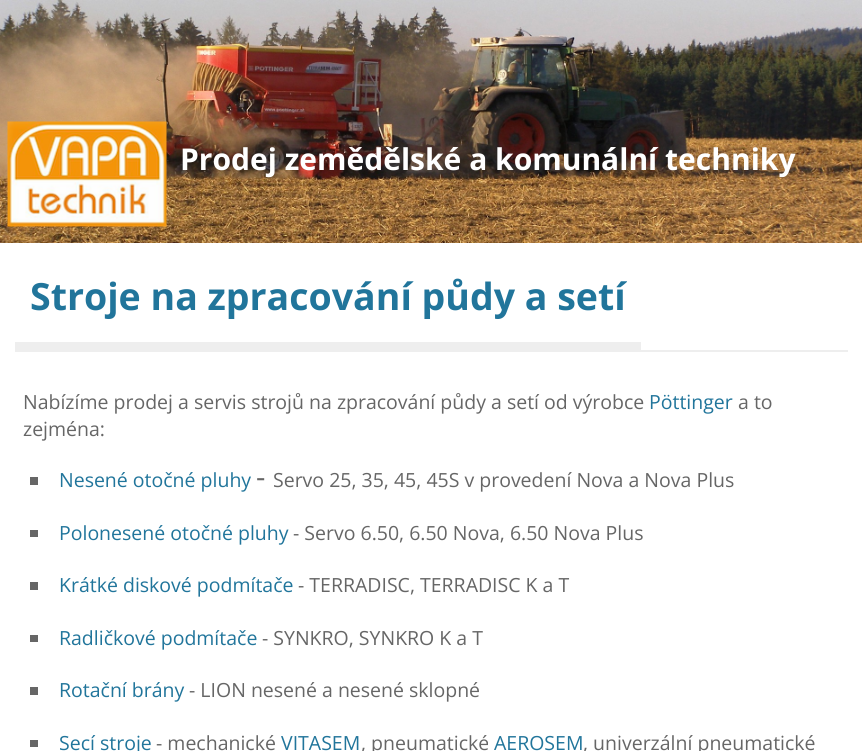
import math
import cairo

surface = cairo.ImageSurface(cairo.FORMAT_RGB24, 862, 751)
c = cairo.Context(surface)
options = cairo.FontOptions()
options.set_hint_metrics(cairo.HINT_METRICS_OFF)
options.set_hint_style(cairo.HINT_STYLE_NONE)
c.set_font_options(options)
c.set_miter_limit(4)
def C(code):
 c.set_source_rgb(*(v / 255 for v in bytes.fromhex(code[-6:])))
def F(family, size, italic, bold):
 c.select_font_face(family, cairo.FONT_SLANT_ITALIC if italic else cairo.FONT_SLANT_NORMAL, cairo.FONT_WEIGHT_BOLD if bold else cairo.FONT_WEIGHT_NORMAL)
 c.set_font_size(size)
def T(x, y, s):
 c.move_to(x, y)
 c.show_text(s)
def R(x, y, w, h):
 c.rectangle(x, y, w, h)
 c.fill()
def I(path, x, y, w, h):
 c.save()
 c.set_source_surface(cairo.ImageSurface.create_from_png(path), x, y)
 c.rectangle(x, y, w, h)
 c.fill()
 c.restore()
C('ffffff')
c.paint()
I('1.png',0,0,862,243)
I('2.png',7,121,160,106)
F('Open Sans',30,0,1)
C('ffffff')
T(180,170,'Prodej zemědělské a komunální techniky')
C('eeeeee')
R(15,350,833,2)
R(15,342,626,8)
F('Open Sans',37.5,0,1)
C('21759b')
T(30,310,'Stroje na zpracování půdy a setí')
F('Open Sans',19.5,0,0)
C('666666')
T(23,409,'Nabízíme prodej a servis strojů na zpracování půdy a setí od výrobce')
C('21759b')
T(649,409,'Pöttinger')
C('666666')
T(738,409,'a to')
T(23,436,'zejména:')
R(30,477,8,8)
C('21759b')
T(59,487,'Nesené otočné pluhy')
F('Open Sans',29,0,0)
C('666666')
T(256,487,'-')
F('Open Sans',19.5,0,0)
T(273,487,'Servo 25, 35, 45, 45S v provedení Nova a Nova Plus')
R(30,530,8,7)
C('21759b')
T(59,540,'Polonesené otočné pluhy')
C('666666')
T(293,540,'- Servo 6.50, 6.50 Nova, 6.50 Nova Plus')
R(30,582,8,8)
C('21759b')
T(59,592,'Krátké diskové podmítače')
C('666666')
T(298,592,'- TERRADISC, TERRADISC K a T')
R(30,635,8,7)
C('21759b')
T(59,645,'Radličkové podmítače')
C('666666')
T(262,645,'- SYNKRO, SYNKRO K a T')
R(30,687,8,8)
C('21759b')
T(59,697,'Rotační brány')
C('666666')
T(189,697,'- LION nesené a nesené sklopné')
R(30,740,8,7)
C('21759b')
T(59,750,'Secí stroje')
C('666666')
T(156,750,'- mechanické')
C('21759b')
T(281,750,'VITASEM')
C('666666')
T(361,750,', pneumatické')
C('21759b')
T(494,750,'AEROSEM')
C('666666')
T(583,750,', univerzální pneumatické')
surface.write_to_png('o.png')
